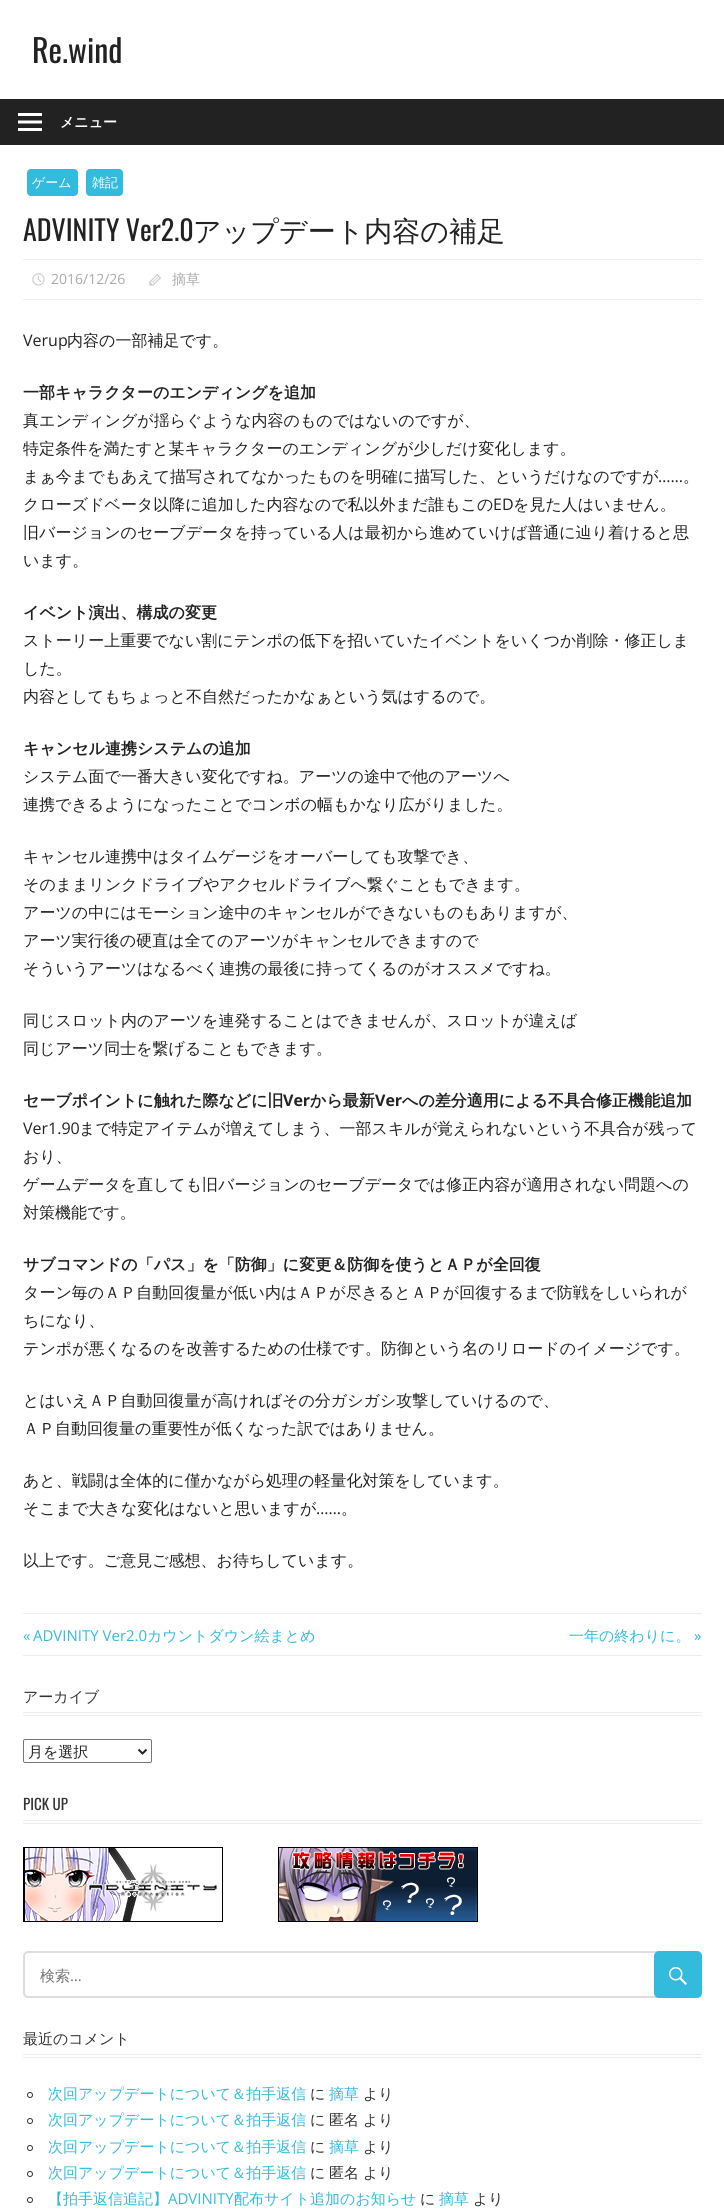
import math
import cairo

surface = cairo.ImageSurface(cairo.FORMAT_RGB24, 724, 2209)
c = cairo.Context(surface)
options = cairo.FontOptions()
options.set_hint_metrics(cairo.HINT_METRICS_OFF)
options.set_hint_style(cairo.HINT_STYLE_NONE)
c.set_font_options(options)
c.set_miter_limit(4)
def C(code):
 c.set_source_rgb(*(v / 255 for v in bytes.fromhex(code[-6:])))
def F(family, size, italic, bold):
 c.select_font_face(family, cairo.FONT_SLANT_ITALIC if italic else cairo.FONT_SLANT_NORMAL, cairo.FONT_WEIGHT_BOLD if bold else cairo.FONT_WEIGHT_NORMAL)
 c.set_font_size(size)
def T(x, y, s):
 c.move_to(x, y)
 c.show_text(s)
def R(x, y, w, h):
 c.rectangle(x, y, w, h)
 c.fill()
def Q(x, y, w, h, r):
 c.new_sub_path()
 for i, (u, v) in enumerate([(x + w - r, y + h - r), (x + r, y + h - r), (x + r, y + r), (x + w - r, y + r)]):
  c.arc(u, v, r, i * math.pi / 2, (i + 1) * math.pi / 2)
 c.close_path()
def I(path, x, y, w, h):
 c.save()
 c.set_source_surface(cairo.ImageSurface.create_from_png(path), x, y)
 c.rectangle(x, y, w, h)
 c.fill()
 c.restore()
C('ffffff')
c.paint()
F('Oswald',32,0,0)
C('222222')
T(32,63,'Re.wind')
R(0,99,724,46)
I('1.png',18,113,24,18)
F('WenQuanYi Zen Hei',14,0,1)
C('ffffff')
T(60,127,'メニュー')
C('33bbdd')
Q(27,169,51,27,4)
c.fill()
F('WenQuanYi Zen Hei Medium',13,0,0)
C('ffffff')
T(32,187,'ゲーム')
C('33bbdd')
Q(86,169,37,27,4)
c.fill()
C('ffffff')
T(92,187,'雑記')
F('Oswald',28,0,0)
C('222222')
T(23,241,'ADVINITY Ver2.0')
F('WenQuanYi Zen Hei Medium',28,0,0)
T(193,241,'アップデート内容の補足')
C('eeeeee')
R(23,259,679,1)
R(23,299,679,1)
I('2.png',32,273,13,13)
F('Open Sans',14,0,0)
C('aaaaaa')
T(51,284,'2016/12/26')
I('3.png',149,274,12,12)
F('WenQuanYi Zen Hei Medium',14,0,0)
T(172,284,'摘草')
F('Open Sans',16,0,0)
C('222222')
T(23,346,'Verup')
F('WenQuanYi Zen Hei Medium',16,0,0)
T(67,346,'内容の一部補足です。')
F('WenQuanYi Zen Hei',16,0,1)
T(23,398,'一部キャラクターのエンディングを追加')
F('WenQuanYi Zen Hei Medium',16,0,0)
T(23,426,'真エンディングが揺らぐような内容のものではないのですが、')
T(23,454,'特定条件を満たすと某キャラクターのエンディングが少しだけ変化します。')
T(23,482,'まぁ今までもあえて描写されてなかったものを明確に描写した、というだけなのですが')
F('Open Sans',16,0,0)
T(658,482,'……')
F('WenQuanYi Zen Hei Medium',16,0,0)
T(683,482,'。')
T(23,510,'クローズドベータ以降に追加した内容なので私以外まだ誰もこの')
F('Open Sans',16,0,0)
T(493,510,'ED')
F('WenQuanYi Zen Hei Medium',16,0,0)
T(513,510,'を見た人はいません。')
T(23,538,'旧バージョンのセーブデータを持っている人は最初から進めていけば普通に辿り着けると思')
T(23,566,'います。')
F('WenQuanYi Zen Hei',16,0,1)
T(23,618,'イベント演出、構成の変更')
F('WenQuanYi Zen Hei Medium',16,0,0)
T(23,646,'ストーリー上重要でない割にテンポの低下を招いていたイベントをいくつか削除・修正しま')
T(23,674,'した。')
T(23,702,'内容としてもちょっと不自然だったかなぁという気はするので。')
F('WenQuanYi Zen Hei',16,0,1)
T(23,754,'キャンセル連携システムの追加')
F('WenQuanYi Zen Hei Medium',16,0,0)
T(23,782,'システム面で一番大きい変化ですね。アーツの途中で他のアーツへ')
T(23,810,'連携できるようになったことでコンボの幅もかなり広がりました。')
T(23,862,'キャンセル連携中はタイムゲージをオーバーしても攻撃でき、')
T(23,890,'そのままリンクドライブやアクセルドライブへ繋ぐこともできます。')
T(23,918,'アーツの中にはモーション途中のキャンセルができないものもありますが、')
T(23,946,'アーツ実行後の硬直は全てのアーツがキャンセルできますので')
T(23,974,'そういうアーツはなるべく連携の最後に持ってくるのがオススメですね。')
T(23,1026,'同じスロット内のアーツを連発することはできませんが、スロットが違えば')
T(23,1054,'同じアーツ同士を繋げることもできます。')
F('WenQuanYi Zen Hei',16,0,1)
T(23,1106,'セーブポイントに触れた際などに旧')
F('Open Sans',16,0,1)
T(283,1106,'Ver')
F('WenQuanYi Zen Hei',16,0,1)
T(310,1106,'から最新')
F('Open Sans',16,0,1)
T(375,1106,'Ver')
F('WenQuanYi Zen Hei',16,0,1)
T(402,1106,'への差分適用による不具合修正機能追加')
F('Open Sans',16,0,0)
T(23,1134,'Ver1.90')
F('WenQuanYi Zen Hei Medium',16,0,0)
T(79,1134,'まで特定アイテムが増えてしまう、一部スキルが覚えられないという不具合が残って')
T(23,1162,'おり、')
T(23,1190,'ゲームデータを直しても旧バージョンのセーブデータでは修正内容が適用されない問題への')
T(23,1218,'対策機能です。')
F('WenQuanYi Zen Hei',16,0,1)
T(23,1270,'サブコマンドの「パス」を「防御」に変更＆防御を使うとＡＰが全回復')
F('WenQuanYi Zen Hei Medium',16,0,0)
T(23,1298,'ターン毎のＡＰ自動回復量が低い内はＡＰが尽きるとＡＰが回復するまで防戦をしいられが')
T(23,1326,'ちになり、')
T(23,1354,'テンポが悪くなるのを改善するための仕様です。防御という名のリロードのイメージです。')
T(23,1406,'とはいえＡＰ自動回復量が高ければその分ガシガシ攻撃していけるので、')
T(23,1434,'ＡＰ自動回復量の重要性が低くなった訳ではありません。')
T(23,1486,'あと、戦闘は全体的に僅かながら処理の軽量化対策をしています。')
T(23,1514,'そこまで大きな変化はないと思いますが')
F('Open Sans',16,0,0)
T(316,1514,'……')
F('WenQuanYi Zen Hei Medium',16,0,0)
T(341,1514,'。')
T(23,1566,'以上です。ご意見ご感想、お待ちしています。')
C('eeeeee')
R(23,1613,679,1)
R(23,1655,679,1)
F('Open Sans',15,0,0)
C('33bbdd')
T(23,1641,'«')
T(33,1641,'ADVINITY Ver2.0')
F('WenQuanYi Zen Hei Medium',15,0,0)
T(147,1641,'カウントダウン絵まとめ')
T(569,1641,'一年の終わりに。')
F('Open Sans',15,0,0)
T(694,1641,'»')
C('eeeeee')
R(23,1715,679,1)
R(23,1712,679,1)
F('WenQuanYi Zen Hei Medium',15,0,0)
C('333333')
T(23,1702,'アーカイブ')
Q(23.5,1739.5,128,23,1.5)
C('767676')
c.set_line_width(1)
c.stroke()
c.new_path()
c.move_to(138.5,1749.5)
c.line_to(142.5,1753.5)
c.line_to(146.5,1749.5)
C('222222')
c.set_line_width(2)
c.stroke()
T(28,1757,'月を選択')
C('eeeeee')
R(23,1823,679,1)
R(23,1820,679,1)
F('Oswald',15,0,0)
C('333333')
T(23,1810,'PICK UP')
I('4.png',23,1847,200,75)
I('5.png',278,1847,200,75)
Q(24,1952,677,45,4)
C('dddddd')
c.stroke()
F('WenQuanYi Zen Hei Medium',15,0,0)
C('757575')
T(40,1981,'検索')
F('Open Sans',15,0,0)
T(70,1981,'…')
C('33bbdd')
Q(654,1951,48,47,5)
c.fill()
I('6.png',669,1967,18,18)
C('eeeeee')
R(23,2057,679,1)
R(23,2054,679,1)
F('WenQuanYi Zen Hei Medium',15,0,0)
C('333333')
T(23,2044,'最近のコメント')
c.new_path()
c.arc(30,2095,2.5,0,2 * math.pi)
c.set_line_width(1)
c.stroke()
C('33bbdd')
T(48,2099,'次回アップデートについて＆拍手返信')
C('333333')
T(310,2099,'に')
C('33bbdd')
T(329,2099,'摘草')
C('333333')
T(363,2099,'より')
c.new_path()
c.arc(30,2121,2.5,0,2 * math.pi)
c.stroke()
C('33bbdd')
T(48,2125,'次回アップデートについて＆拍手返信')
C('333333')
T(310,2125,'に')
T(329,2125,'匿名')
T(363,2125,'より')
c.new_path()
c.arc(30,2148,2.5,0,2 * math.pi)
c.stroke()
C('33bbdd')
T(48,2152,'次回アップデートについて＆拍手返信')
C('333333')
T(310,2152,'に')
C('33bbdd')
T(329,2152,'摘草')
C('333333')
T(363,2152,'より')
c.new_path()
c.arc(30,2174,2.5,0,2 * math.pi)
c.stroke()
C('33bbdd')
T(48,2178,'次回アップデートについて＆拍手返信')
C('333333')
T(310,2178,'に')
T(329,2178,'匿名')
T(363,2178,'より')
c.new_path()
c.arc(30,2200,2.5,0,2 * math.pi)
c.stroke()
C('33bbdd')
T(48,2204,'【拍手返信追記】')
F('Open Sans',15,0,0)
T(168,2204,'ADVINITY')
F('WenQuanYi Zen Hei Medium',15,0,0)
T(234,2204,'配布サイト追加のお知らせ')
C('333333')
T(420,2204,'に')
C('33bbdd')
T(439,2204,'摘草')
C('333333')
T(473,2204,'より')
surface.write_to_png('o.png')
